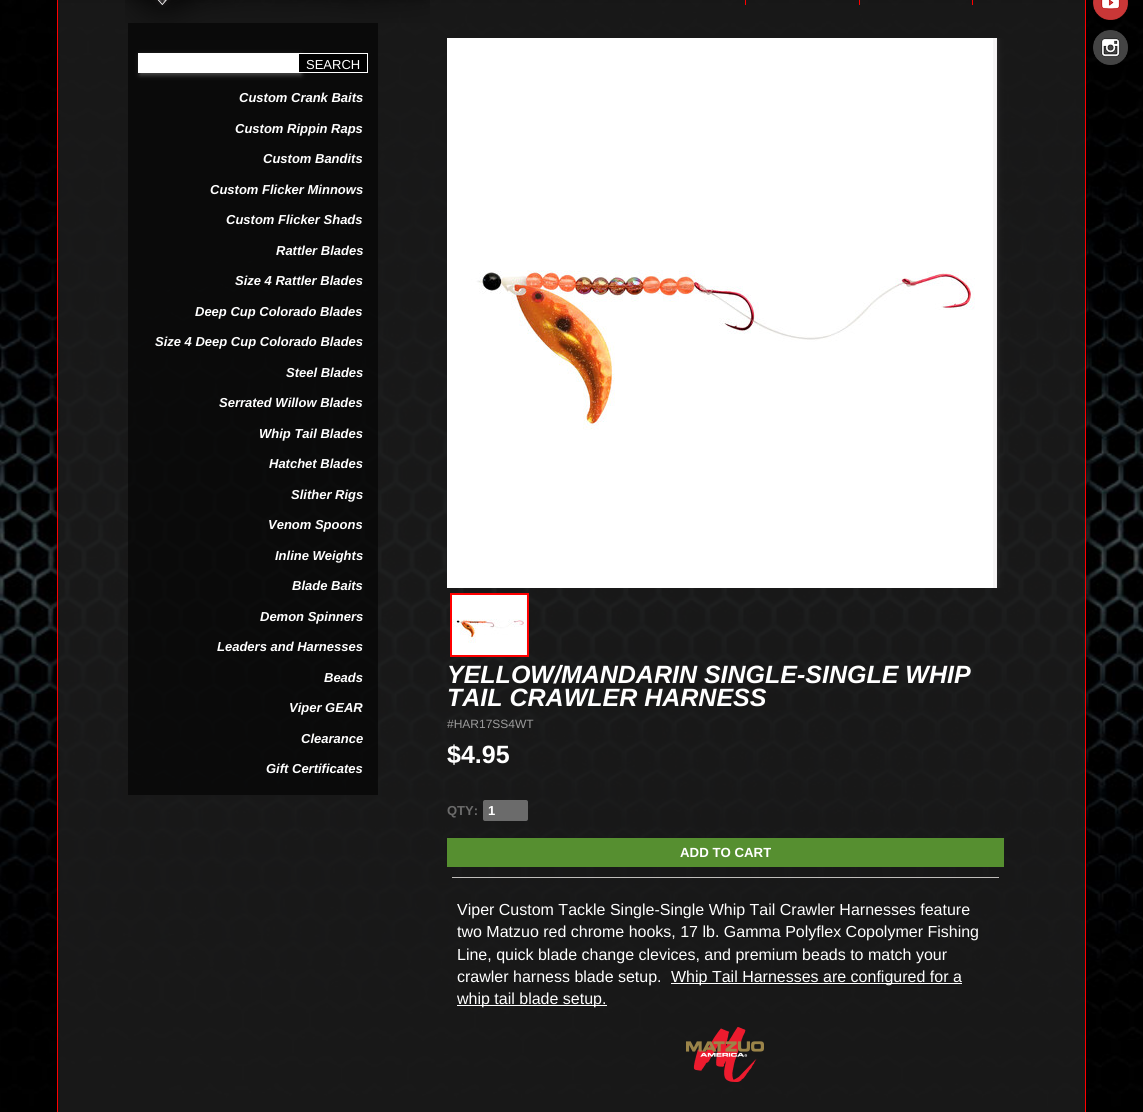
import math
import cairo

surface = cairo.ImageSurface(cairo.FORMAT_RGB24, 1143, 1112)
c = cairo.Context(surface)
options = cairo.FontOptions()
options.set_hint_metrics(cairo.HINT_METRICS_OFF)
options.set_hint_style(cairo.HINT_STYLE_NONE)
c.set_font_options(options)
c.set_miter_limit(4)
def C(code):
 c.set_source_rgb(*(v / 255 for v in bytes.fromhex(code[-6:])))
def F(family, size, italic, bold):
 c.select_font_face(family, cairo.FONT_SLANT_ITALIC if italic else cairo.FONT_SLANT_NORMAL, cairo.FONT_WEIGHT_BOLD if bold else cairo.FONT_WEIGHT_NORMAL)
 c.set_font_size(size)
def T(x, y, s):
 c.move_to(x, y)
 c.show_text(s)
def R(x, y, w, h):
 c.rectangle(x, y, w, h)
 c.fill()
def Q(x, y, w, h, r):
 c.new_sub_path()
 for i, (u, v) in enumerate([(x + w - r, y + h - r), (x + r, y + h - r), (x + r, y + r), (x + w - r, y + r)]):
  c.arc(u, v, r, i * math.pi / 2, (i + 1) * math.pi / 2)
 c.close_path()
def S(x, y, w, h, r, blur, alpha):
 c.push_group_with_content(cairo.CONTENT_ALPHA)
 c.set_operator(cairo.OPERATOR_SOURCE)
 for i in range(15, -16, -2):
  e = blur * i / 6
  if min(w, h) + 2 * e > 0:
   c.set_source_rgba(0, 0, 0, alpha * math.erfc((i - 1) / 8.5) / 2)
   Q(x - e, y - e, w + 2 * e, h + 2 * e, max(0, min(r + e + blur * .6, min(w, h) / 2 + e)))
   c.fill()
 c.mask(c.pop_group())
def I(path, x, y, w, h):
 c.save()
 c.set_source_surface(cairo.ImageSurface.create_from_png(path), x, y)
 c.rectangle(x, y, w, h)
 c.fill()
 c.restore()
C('ffffff')
c.paint()
I('1.png',0,0,1143,1112)
c.save()
c.set_fill_rule(cairo.FILL_RULE_EVEN_ODD)
c.new_path()
c.move_to(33,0)
c.line_to(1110,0)
c.line_to(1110,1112)
c.line_to(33,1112)
c.close_path()
c.move_to(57,-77)
c.line_to(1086,-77)
c.line_to(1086,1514)
c.line_to(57,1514)
c.close_path()
c.clip()
C('000000')
S(57,-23,1029,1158,0,7.5,1)
c.restore()
C('ff0000')
R(1085,0,1,1112)
R(57,0,1,1112)
gradient = cairo.LinearGradient(572,-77,572,5)
gradient.add_color_stop_rgba(.01,0,0,0,.8)
gradient.add_color_stop_rgba(1,0,0,0,0)
c.set_source(gradient)
R(57,0,1029,3)
C('ff0000')
R(745,0,1,5)
R(859,0,1,5)
R(972,0,1,5)
R(1085,0,1,5)
I('2.png',125,0,305,23)
I('3.png',1093,0,35,20)
I('4.png',1093,30,35,35)
c.set_source_rgba(0,0,0,0.6)
R(128,23,250,772)
C('525252')
S(140,55,161,20,0,2.5,1)
C('ffffff')
R(138,53,161,20)
C('000000')
R(299,54,68,18)
C('ffffff')
R(299,53,69,1)
R(367,53,1,20)
R(299,72,69,1)
F('Liberation Sans',13,0,0)
T(306,69,'SEARCH')
F('Liberation Sans',13,1,1)
T(239,102,'Custom Crank Baits')
T(235,133,'Custom Rippin Raps')
T(263,163,'Custom Bandits')
T(210,194,'Custom Flicker Minnows')
T(226,224,'Custom Flicker Shads')
T(276,255,'Rattler Blades')
T(235,285,'Size 4 Rattler Blades')
T(195,316,'Deep Cup Colorado Blades')
T(155,346,'Size 4 Deep Cup Colorado Blades')
T(286,377,'Steel Blades')
T(219,407,'Serrated Willow Blades')
T(259,438,'Whip Tail Blades')
T(269,468,'Hatchet Blades')
T(291,499,'Slither Rigs')
T(268,529,'Venom Spoons')
T(275,560,'Inline Weights')
T(292,590,'Blade Baits')
T(260,621,'Demon Spinners')
T(217,651,'Leaders and Harnesses')
T(324,682,'Beads')
T(289,712,'Viper GEAR')
T(301,743,'Clearance')
T(266,773,'Gift Certificates')
c.save()
c.rectangle(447,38,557,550)
c.clip()
C('2d2d2d')
S(448,39,550,550,0,2.5,1)
c.restore()
I('5.png',447,38,550,550)
c.rectangle(451,594,77,62)
C('ff0000')
c.stroke()
I('6.png',452,595,75,60)
F('Liberation Sans',25,1,1)
C('ffffff')
T(447,683,'YELLOW/MANDARIN SINGLE-SINGLE WHIP')
T(447,706,'TAIL CRAWLER HARNESS')
F('Liberation Sans',12,0,0)
C('9b9b9b')
T(447,728,'#HAR17SS4WT')
F('Liberation Sans',25,0,1)
C('ffffff')
T(447,763,'$4.95')
F('Liberation Sans',13,0,1)
C('6b6b6b')
T(447,815,'QTY:')
Q(483,800,45,21,2)
c.fill()
C('ffffff')
T(488,815,'1')
C('568f30')
R(447,838,557,29)
F('Liberation Sans',13.25,0,1)
C('ffffff')
T(680,857,'ADD TO CART')
C('c1bebc')
R(452,877,547,1)
F('Liberation Sans',16,0,0)
C('ffffff')
T(457,915,'Viper Custom Tackle Single-Single Whip Tail Crawler Harnesses feature')
T(457,937,'two Matzuo red chrome hooks, 17 lb. Gamma Polyflex Copolymer Fishing')
T(457,960,'Line, quick blade change clevices, and premium beads to match your')
T(457,982,'crawler harness blade setup.')
R(671,983,291,1)
T(671,982,'Whip Tail Harnesses are configured for a')
R(457,1005,150,1)
T(457,1004,'whip tail blade setup.')
I('7.png',686,1027,78,55)
surface.write_to_png('o.png')
